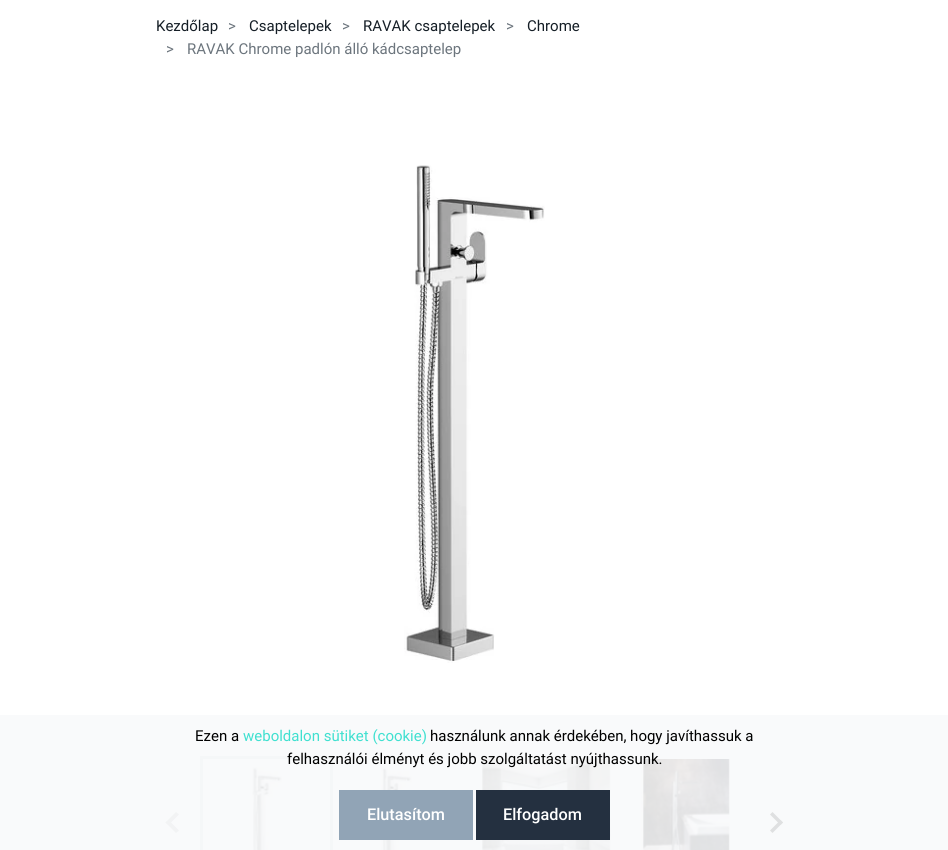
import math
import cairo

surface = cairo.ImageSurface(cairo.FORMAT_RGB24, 948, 850)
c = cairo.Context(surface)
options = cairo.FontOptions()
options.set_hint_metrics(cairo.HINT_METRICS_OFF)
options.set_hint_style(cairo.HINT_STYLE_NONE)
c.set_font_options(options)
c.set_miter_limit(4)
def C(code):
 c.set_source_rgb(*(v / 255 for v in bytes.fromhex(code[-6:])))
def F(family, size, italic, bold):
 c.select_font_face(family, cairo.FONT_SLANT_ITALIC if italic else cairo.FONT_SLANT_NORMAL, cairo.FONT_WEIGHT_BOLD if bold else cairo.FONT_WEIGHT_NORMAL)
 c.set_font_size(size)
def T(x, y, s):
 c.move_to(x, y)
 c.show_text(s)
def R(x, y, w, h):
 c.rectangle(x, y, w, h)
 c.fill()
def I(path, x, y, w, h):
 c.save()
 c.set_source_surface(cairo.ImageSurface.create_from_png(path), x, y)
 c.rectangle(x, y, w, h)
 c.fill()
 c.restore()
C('ffffff')
c.paint()
C('f9fafb')
R(0,715,948,135)
F('Roboto',15,0,0)
C('151e26')
T(156,31,'Kezdőlap')
C('6c757d')
T(228,31,'>')
C('151e26')
T(249,31,'Csaptelepek')
C('6c757d')
T(342,31,'>')
C('151e26')
T(363,31,'RAVAK csaptelepek')
C('6c757d')
T(506,31,'>')
C('151e26')
T(527,31,'Chrome')
C('6c757d')
T(166,54,'>')
T(187,54,'RAVAK Chrome padlón álló kádcsaptelep')
I('1.png',404,165,141,498)
C('f2f3f4')
c.new_path()
c.move_to(165.5,822.5)
c.line_to(176,812)
c.line_to(179,814.5)
c.line_to(168.5,825)
c.close_path()
c.fill()
c.new_path()
c.move_to(165.5,822.5)
c.line_to(168.5,820)
c.line_to(179,830.5)
c.line_to(176,833)
c.close_path()
c.fill()
I('2.png',252,767,30,83)
c.rectangle(201.5,757.5,130,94)
C('f5f7f8')
c.set_line_width(3)
c.stroke()
I('3.png',381,767,31,83)
I('4.png',482,759,129,91)
I('5.png',641,759,89,91)
C('dfe0e1')
c.new_path()
c.move_to(770,814.5)
c.line_to(772.5,812)
c.line_to(783,822.5)
c.line_to(780.5,825)
c.close_path()
c.fill()
c.new_path()
c.move_to(770,830.5)
c.line_to(780.5,820)
c.line_to(783,822.5)
c.line_to(772.5,833)
c.close_path()
c.fill()
C('000000')
T(195,741,'Ezen a')
C('40e0d0')
T(243,741,'weboldalon sütiket (cookie)')
C('000000')
T(430,741,'használunk annak érdekében, hogy javíthassuk a')
T(287,764,'felhasználói élményt és jobb szolgáltatást nyújthassunk.')
C('91a4b6')
R(339,790,134,50)
F('Roboto Medium',16.25,0,0)
C('ffffff')
T(367,820,'Elutasítom')
C('243040')
R(476,790,134,50)
C('ffffff')
T(503,820,'Elfogadom')
surface.write_to_png('o.png')
